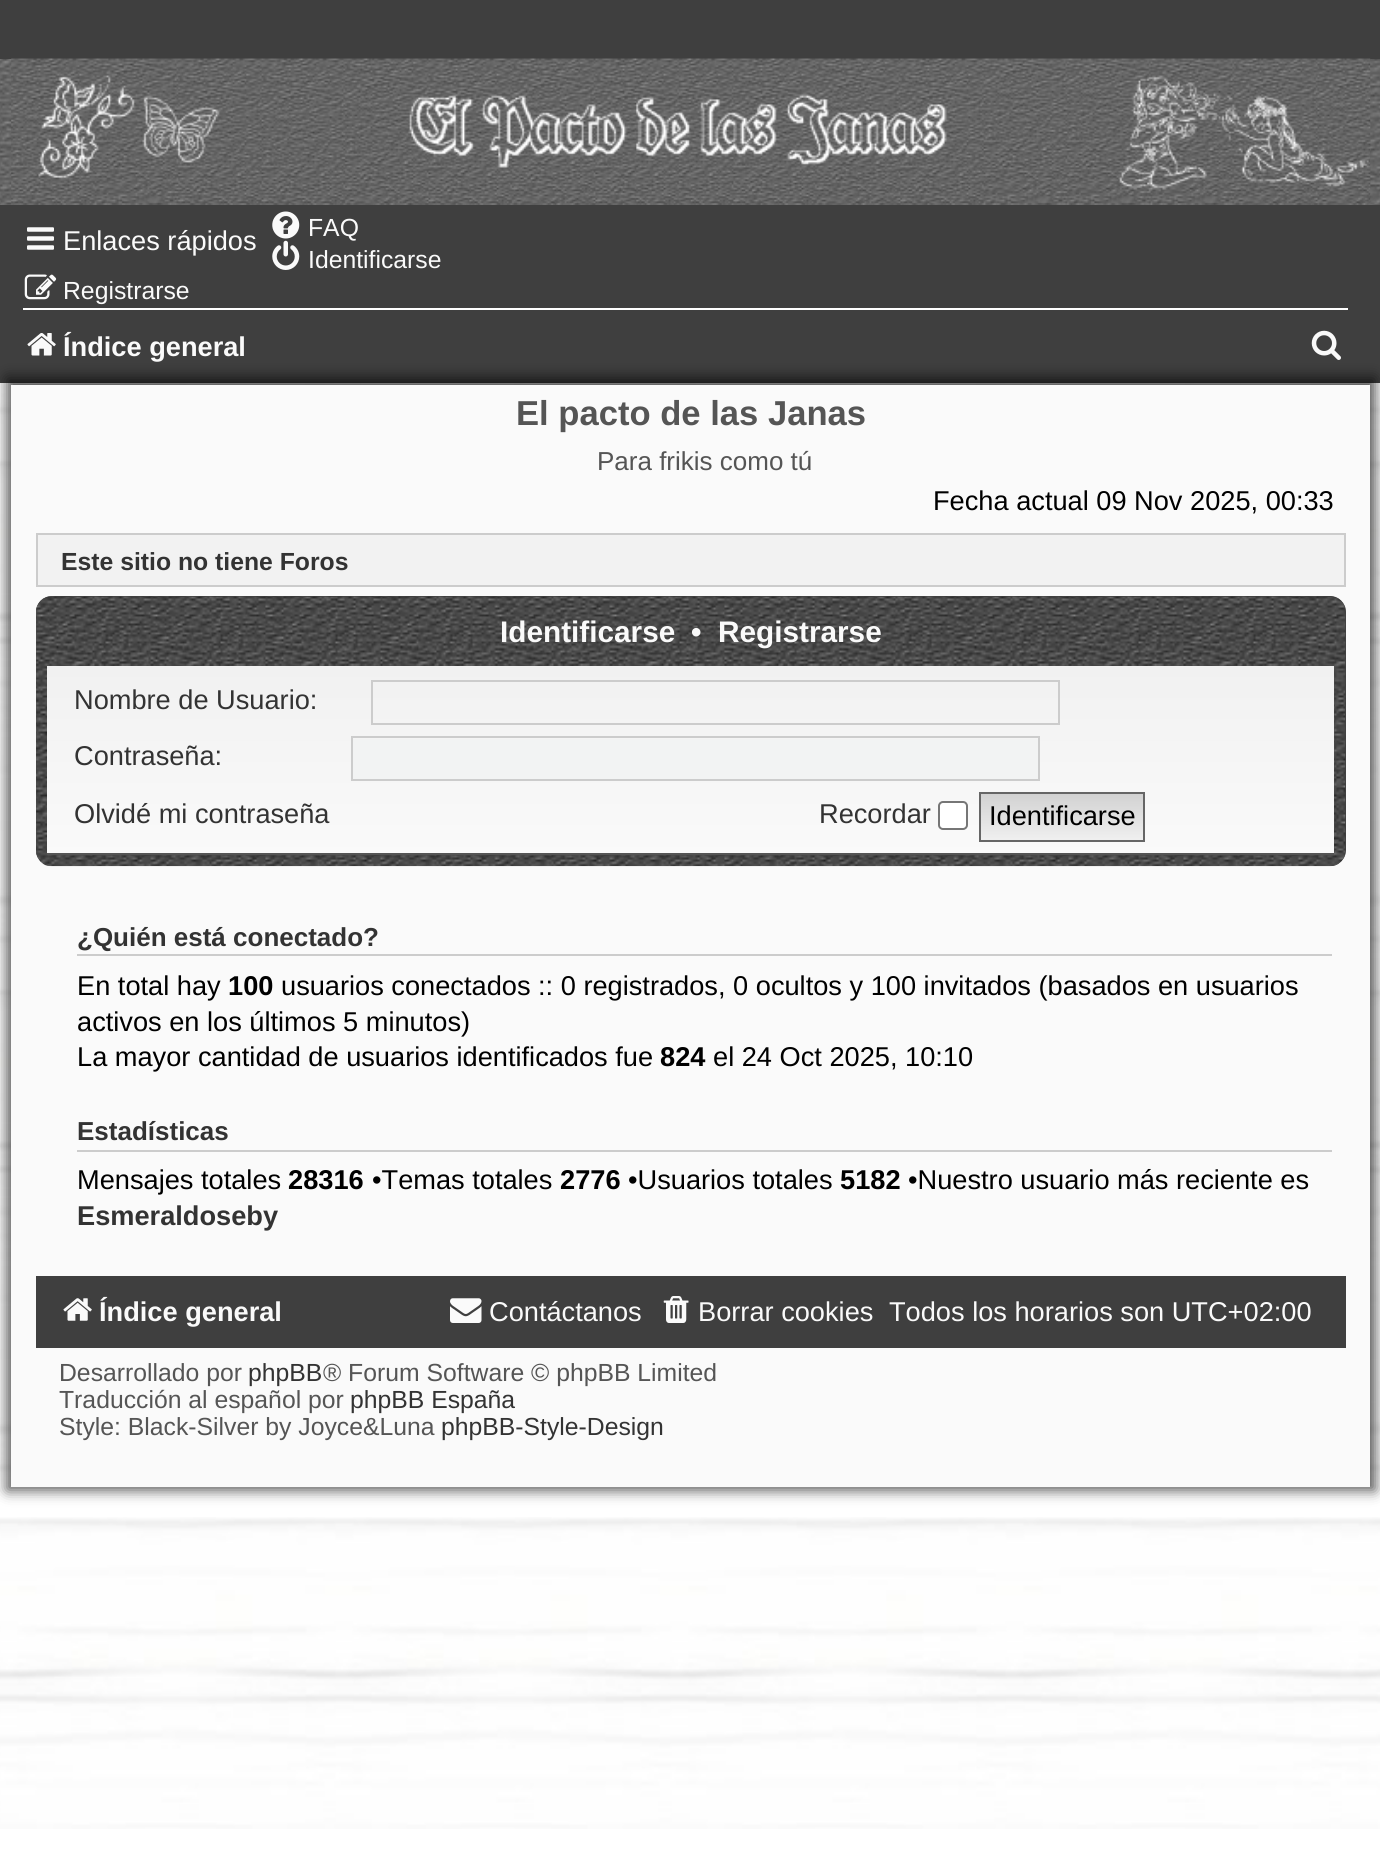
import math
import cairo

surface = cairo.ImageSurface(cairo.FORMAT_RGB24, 1380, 1876)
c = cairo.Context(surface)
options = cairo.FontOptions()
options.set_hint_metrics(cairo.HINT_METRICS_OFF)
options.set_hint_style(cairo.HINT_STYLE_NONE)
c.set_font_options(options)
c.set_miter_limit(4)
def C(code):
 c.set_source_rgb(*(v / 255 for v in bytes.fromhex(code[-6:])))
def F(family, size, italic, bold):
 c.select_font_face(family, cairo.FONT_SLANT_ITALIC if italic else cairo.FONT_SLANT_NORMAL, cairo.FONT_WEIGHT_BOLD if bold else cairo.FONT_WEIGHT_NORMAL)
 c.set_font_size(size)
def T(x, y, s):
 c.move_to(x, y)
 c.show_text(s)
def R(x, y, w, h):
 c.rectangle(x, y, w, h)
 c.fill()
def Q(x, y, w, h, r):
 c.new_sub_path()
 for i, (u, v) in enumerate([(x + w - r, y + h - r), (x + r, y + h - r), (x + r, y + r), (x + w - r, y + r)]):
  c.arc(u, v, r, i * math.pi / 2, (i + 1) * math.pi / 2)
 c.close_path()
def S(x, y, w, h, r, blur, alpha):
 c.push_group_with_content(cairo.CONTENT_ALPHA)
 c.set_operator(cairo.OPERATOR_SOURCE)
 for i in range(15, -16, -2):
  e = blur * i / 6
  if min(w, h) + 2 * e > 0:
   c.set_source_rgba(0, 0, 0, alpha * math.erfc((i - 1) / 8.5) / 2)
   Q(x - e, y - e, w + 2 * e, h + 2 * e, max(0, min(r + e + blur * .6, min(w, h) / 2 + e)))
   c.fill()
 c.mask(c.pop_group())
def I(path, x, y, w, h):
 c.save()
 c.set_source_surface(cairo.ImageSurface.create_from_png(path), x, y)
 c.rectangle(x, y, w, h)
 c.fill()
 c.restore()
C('ffffff')
c.paint()
I('1.png',0,1517,1380,312)
I('2.png',0,383,1380,1101)
I('3.png',0,59,1380,146)
C('3f3f3f')
R(0,0,1380,59)
I('4.png',11,58,1360,147)
R(0,205,1380,178)
I('5.png',272,211,28,28)
F('Liberation Sans',24.75,0,0)
C('fafafa')
T(308,236,'FAQ')
I('6.png',272,240,28,30)
T(308,268,'Identificarse')
I('7.png',24,274,33,26)
T(63,299,'Registrarse')
I('8.png',27,227,27,23)
F('Liberation Sans',27.2,0,0)
T(63,250,'Enlaces rápidos')
C('ffffff')
R(23,308,1325,2)
I('9.png',27,333,29,23)
C('020202')
S(7,378,1368,1112,0,7,.7)
F('Liberation Sans',27.2,0,1)
C('fafafa')
T(63,356,'Índice general')
I('10.png',1311,330,30,30)
R(11,385,1359,1102)
F('Liberation Sans',34.6,0,1)
C('555555')
T(516,425,'El pacto de las Janas')
F('Liberation Sans',26,0,0)
T(597,470,'Para frikis como tú')
F('Liberation Sans',27.2,0,0)
C('000000')
T(933,510,'Fecha actual 09 Nov 2025, 00:33')
C('f2f2f2')
c.rectangle(37,534,1308,52)
c.fill_preserve()
C('cccccc')
c.stroke()
F('Liberation Sans',24.75,0,1)
C('333333')
T(61,570,'Este sitio no tiene Foros')
C('3f3f3f')
Q(36,596,1310,270,16)
c.fill()
I('11.png',36,596,1310,271)
F('Liberation Sans',29.75,0,1)
C('fafafa')
T(500,642,'Identificarse')
T(691,642,'•')
T(718,642,'Registrarse')
gradient = cairo.LinearGradient(691,666,691,855)
gradient.add_color_stop_rgba(0,0.945,0.945,0.945,1)
gradient.add_color_stop_rgba(1,0.98,0.98,0.98,1)
c.set_source(gradient)
R(47,666,1287,187)
C('555555')
R(47,853,1287,2)
F('Liberation Sans',27.2,0,0)
C('333333')
T(74,709,'Nombre de Usuario:')
c.rectangle(372,681,687,43)
C('cccccc')
c.stroke()
C('333333')
T(74,765,'Contraseña:')
C('f2f3f3')
R(353,739,685,40)
c.rectangle(352,737,687,43)
C('cccccc')
c.stroke()
C('333333')
T(74,823,'Olvidé mi contraseña')
T(819,823,'Recordar')
C('ffffff')
Q(939,802,28,27,4)
c.fill_preserve()
C('767676')
c.stroke()
C('efefef')
R(981,839,162,1)
gradient = cairo.LinearGradient(1062,794,1062,839)
gradient.add_color_stop_rgba(0,0.824,0.824,0.824,1)
gradient.add_color_stop_rgba(1,0.937,0.937,0.937,1)
c.set_source(gradient)
R(981,794,162,45)
c.rectangle(980,793,164,48)
C('666666')
c.stroke()
C('000000')
T(989,825,'Identificarse')
C('cccccc')
R(77,954,1255,2)
F('Liberation Sans',26,0,1)
C('333333')
T(77,946,'¿Quién está conectado?')
F('Liberation Sans',27.2,0,0)
C('000000')
T(77,995,'En total hay')
F('Liberation Sans',27.2,0,1)
T(228,995,'100')
F('Liberation Sans',27.2,0,0)
T(281,995,'usuarios conectados :: 0 registrados, 0 ocultos y 100 invitados (basados en usuarios')
T(77,1031,'activos en los últimos 5 minutos)')
T(77,1066,'La mayor cantidad de usuarios identificados fue')
F('Liberation Sans',27.2,0,1)
T(660,1066,'824')
F('Liberation Sans',27.2,0,0)
T(713,1066,'el 24 Oct 2025, 10:10')
C('cccccc')
R(77,1150,1255,2)
F('Liberation Sans',26,0,1)
C('333333')
T(77,1140,'Estadísticas')
F('Liberation Sans',27.2,0,0)
C('000000')
T(77,1189,'Mensajes totales')
F('Liberation Sans',27.2,0,1)
T(288,1189,'28316')
F('Liberation Sans',27.2,0,0)
T(372,1189,'•Temas totales')
F('Liberation Sans',27.2,0,1)
T(560,1189,'2776')
F('Liberation Sans',27.2,0,0)
T(628,1189,'•Usuarios totales')
F('Liberation Sans',27.2,0,1)
T(840,1189,'5182')
F('Liberation Sans',27.2,0,0)
T(908,1189,'•Nuestro usuario más reciente es')
F('Liberation Sans',27.2,0,1)
C('333333')
T(77,1225,'Esmeraldoseby')
C('3f3f3f')
R(36,1276,1310,72)
I('12.png',63,1298,29,23)
C('fafafa')
T(99,1321,'Índice general')
I('13.png',450,1298,32,25)
F('Liberation Sans',27.2,0,0)
T(489,1321,'Contáctanos')
I('14.png',663,1296,26,27)
T(698,1321,'Borrar cookies')
T(889,1321,'Todos los horarios son UTC+02:00')
F('Liberation Sans',24.75,0,0)
C('555555')
T(59,1381,'Desarrollado por')
C('333333')
T(248,1381,'phpBB')
C('555555')
T(323,1381,'® Forum Software © phpBB Limited')
T(59,1408,'Traducción al español por')
C('333333')
T(350,1408,'phpBB España')
C('555555')
T(59,1435,'Style: Black-Silver by Joyce&Luna')
C('333333')
T(441,1435,'phpBB-Style-Design')
surface.write_to_png('o.png')
